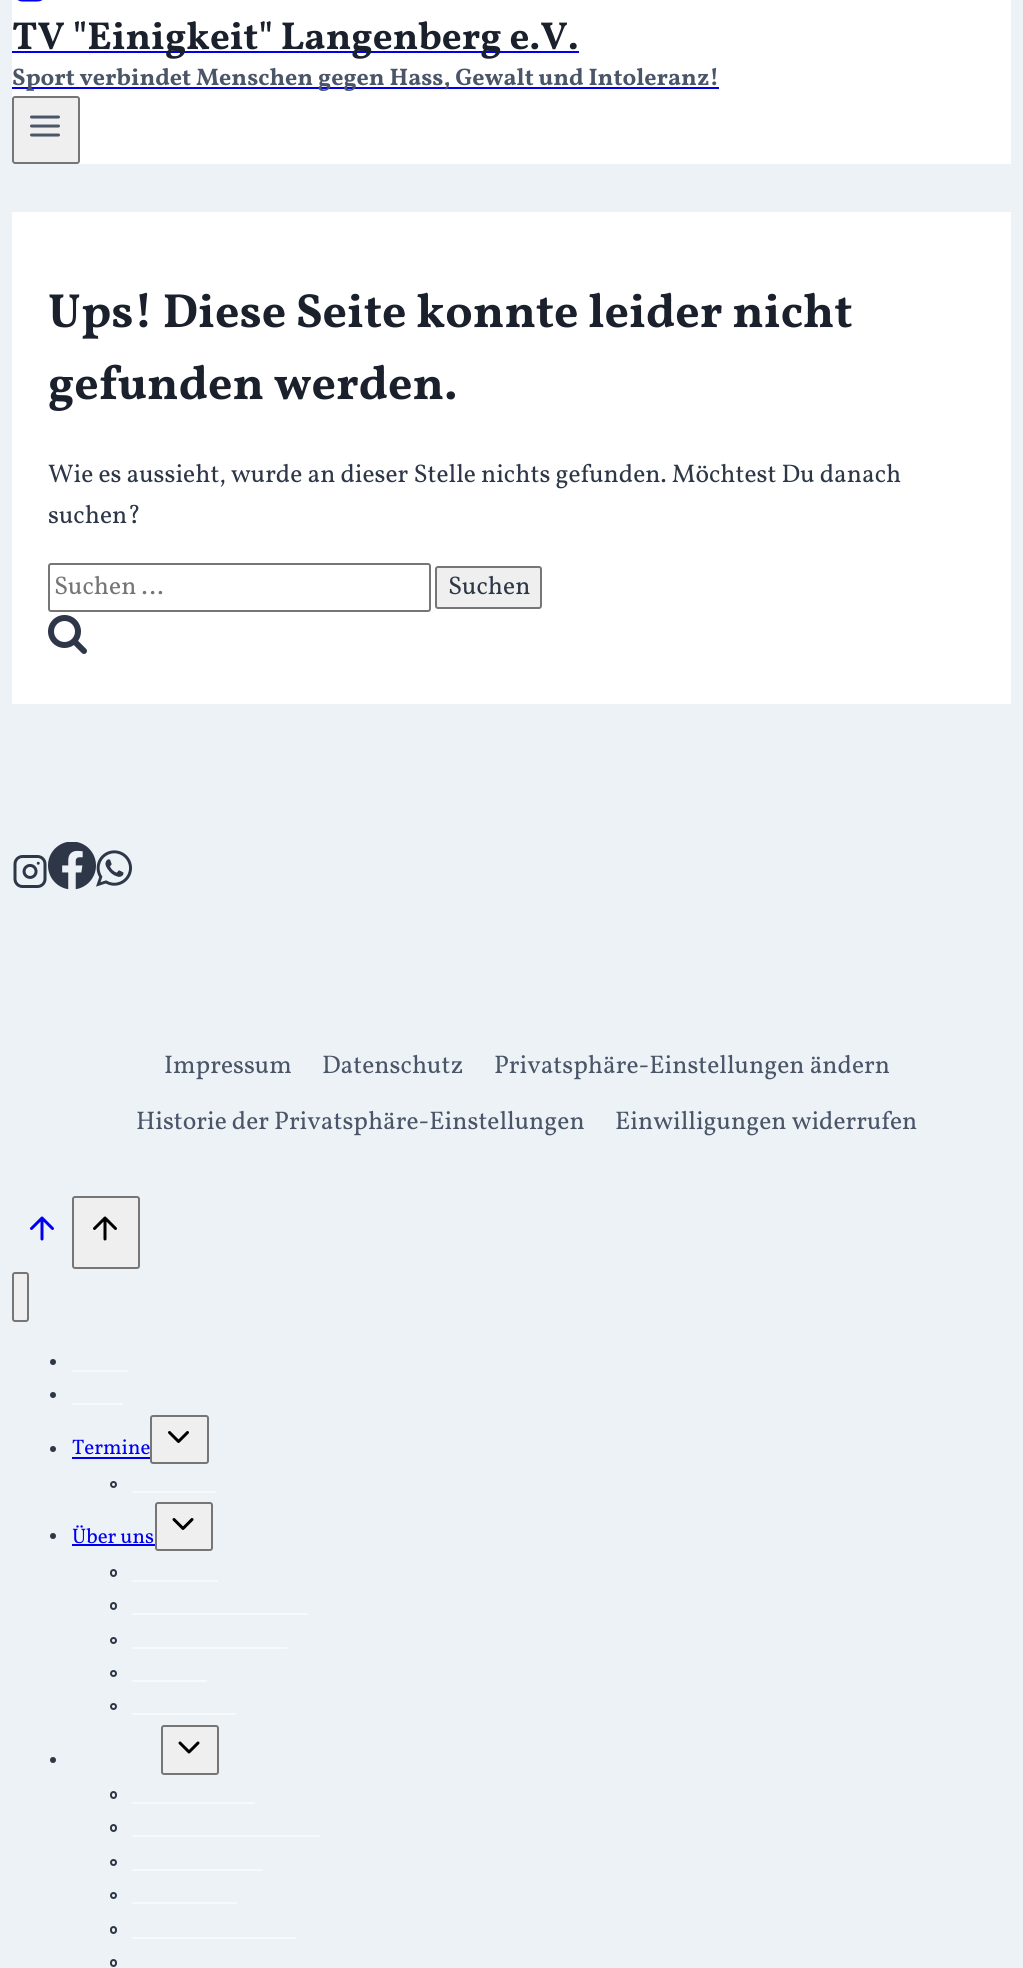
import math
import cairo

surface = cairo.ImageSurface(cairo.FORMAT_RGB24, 1023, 1968)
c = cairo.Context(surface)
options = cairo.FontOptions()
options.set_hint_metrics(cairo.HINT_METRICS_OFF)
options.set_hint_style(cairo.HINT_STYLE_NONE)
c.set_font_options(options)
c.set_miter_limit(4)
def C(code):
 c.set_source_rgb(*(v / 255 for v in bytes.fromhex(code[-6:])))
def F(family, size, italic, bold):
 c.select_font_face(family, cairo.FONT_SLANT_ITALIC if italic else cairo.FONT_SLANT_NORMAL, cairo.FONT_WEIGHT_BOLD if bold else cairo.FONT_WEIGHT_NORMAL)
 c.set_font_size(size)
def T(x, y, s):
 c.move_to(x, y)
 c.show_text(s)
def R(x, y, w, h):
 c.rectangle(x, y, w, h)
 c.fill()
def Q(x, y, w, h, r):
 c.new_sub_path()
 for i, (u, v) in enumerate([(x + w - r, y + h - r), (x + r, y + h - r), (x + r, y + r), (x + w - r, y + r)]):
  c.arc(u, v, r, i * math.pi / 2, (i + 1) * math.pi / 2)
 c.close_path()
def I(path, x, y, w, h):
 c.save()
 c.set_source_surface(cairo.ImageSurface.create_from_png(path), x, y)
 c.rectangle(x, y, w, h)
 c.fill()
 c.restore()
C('edf2f7')
c.paint()
C('ffffff')
R(12,0,999,164)
I('1.png',17,0,26,2)
C('0000ee')
R(12,51,567,2)
F('Vollkorn',39,0,1)
C('1a202c')
T(12,49,'TV "Einigkeit" Langenberg e.V.')
C('0000ee')
R(12,87,707,2)
F('Vollkorn',24,0,1)
C('4a5568')
T(12,85,'Sport verbindet Menschen gegen Hass, Gewalt und Intoleranz!')
C('efefef')
Q(13,97,66,66,2)
c.fill_preserve()
C('767676')
c.stroke()
I('2.png',30,115,30,22)
C('ffffff')
R(12,212,999,492)
F('Vollkorn',48,0,1)
C('1a202c')
T(48,327,'Ups! Diese Seite konnte leider nicht')
T(48,399,'gefunden werden.')
F('Vollkorn',25.5,0,0)
C('2d3748')
T(48,482,'Wie es aussieht, wurde an dieser Stelle nichts gefunden. Möchtest Du danach')
T(48,523,'suchen?')
Q(49,564,381,47,2)
C('767676')
c.stroke()
C('757575')
T(54,594,'Suchen …')
C('efefef')
Q(436,567,105,41,2)
c.fill_preserve()
C('767676')
c.stroke()
C('2d3748')
T(448,594,'Suchen')
I('3.png',48,615,39,39)
I('4.png',13,855,34,33)
I('5.png',48,842,48,48)
I('6.png',96,850,36,37)
C('4a5568')
T(164,1073,'Impressum')
T(322,1073,'Datenschutz')
T(494,1073,'Privatsphäre-Einstellungen ändern')
T(136,1129,'Historie der Privatsphäre-Einstellungen')
T(615,1129,'Einwilligungen widerrufen')
I('7.png',30,1216,24,25)
C('efefef')
Q(73,1197,66,71,2)
c.fill_preserve()
C('767676')
c.stroke()
I('8.png',93,1216,24,25)
C('efefef')
Q(13,1273,15,48,2)
c.fill_preserve()
C('767676')
c.stroke()
C('2d3748')
c.arc(53,1362,3,0,2 * math.pi)
c.fill()
C('f7fafc')
R(72,1370,56,2)
C('2d3748')
c.arc(53,1395,3,0,2 * math.pi)
c.fill()
C('f7fafc')
R(72,1403,51,2)
C('2d3748')
c.arc(53,1449,3,0,2 * math.pi)
c.fill()
F('Vollkorn',21,0,0)
C('0000ee')
T(72,1454,'Termine')
R(72,1457,78,2)
C('efefef')
Q(151,1416,57,47,2)
c.fill_preserve()
C('767676')
c.stroke()
I('9.png',168,1431,21,12)
c.arc(113.5,1484.5,2.5,0,2 * math.pi)
C('2d3748')
c.stroke()
C('f7fafc')
R(132,1491,84,2)
C('2d3748')
c.arc(53,1536,3,0,2 * math.pi)
c.fill()
C('0000ee')
T(72,1543,'Über uns')
R(72,1544,83,2)
C('efefef')
Q(156,1503,56,47,2)
c.fill_preserve()
C('767676')
c.stroke()
I('10.png',172,1518,22,12)
Q(111,1570,5,6,2.5)
C('2d3748')
c.stroke()
C('f7fafc')
R(132,1580,86,2)
Q(111,1603,5,6,2.5)
C('2d3748')
c.stroke()
C('f7fafc')
R(132,1613,176,2)
c.arc(113.5,1640.5,2.5,0,2 * math.pi)
C('2d3748')
c.stroke()
C('f7fafc')
R(132,1647,155,2)
c.arc(113.5,1673.5,2.5,0,2 * math.pi)
C('2d3748')
c.stroke()
C('f7fafc')
R(132,1680,75,2)
c.arc(113.5,1706.5,2.5,0,2 * math.pi)
C('2d3748')
c.stroke()
C('f7fafc')
R(132,1713,104,2)
C('2d3748')
c.arc(53,1760,3,0,2 * math.pi)
c.fill()
C('efefef')
Q(162,1726,56,48,2)
c.fill_preserve()
C('767676')
c.stroke()
I('11.png',178,1741,22,13)
Q(111,1792,5,6,2.5)
C('2d3748')
c.stroke()
C('f7fafc')
R(132,1802,123,2)
Q(111,1825,5,6,2.5)
C('2d3748')
c.stroke()
C('f7fafc')
R(132,1835,188,2)
c.arc(113.5,1862.5,2.5,0,2 * math.pi)
C('2d3748')
c.stroke()
C('f7fafc')
R(132,1869,131,2)
c.arc(113.5,1895.5,2.5,0,2 * math.pi)
C('2d3748')
c.stroke()
C('f7fafc')
R(132,1902,105,2)
Q(111,1927,5,6,2.5)
C('2d3748')
c.stroke()
C('f7fafc')
R(132,1937,164,2)
Q(111,1960,5,6,2.5)
C('2d3748')
c.stroke()
surface.write_to_png('o.png')
